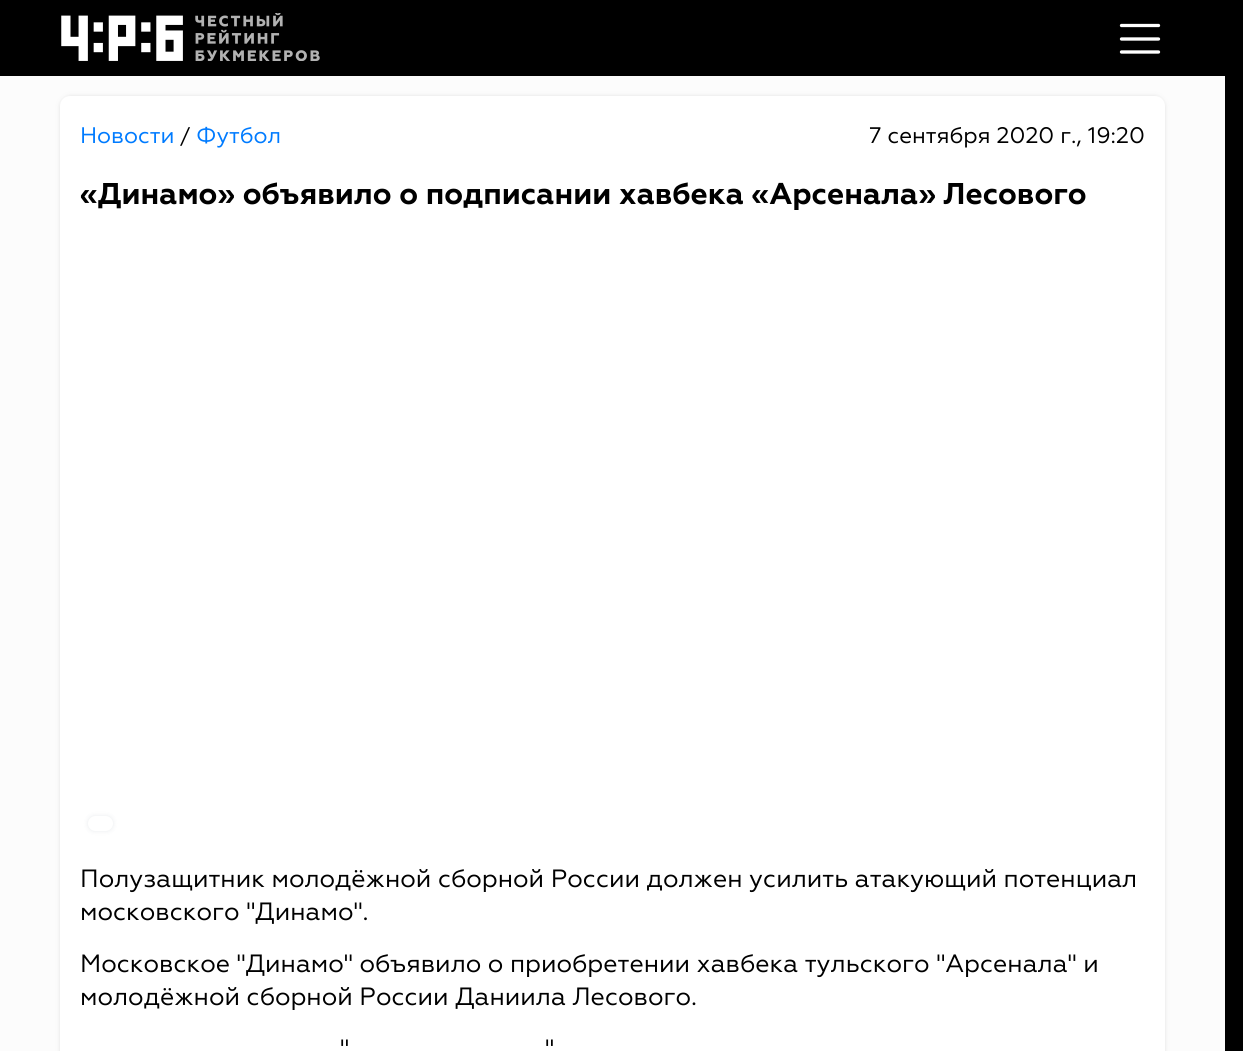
import math
import cairo

surface = cairo.ImageSurface(cairo.FORMAT_RGB24, 1243, 1051)
c = cairo.Context(surface)
options = cairo.FontOptions()
options.set_hint_metrics(cairo.HINT_METRICS_OFF)
options.set_hint_style(cairo.HINT_STYLE_NONE)
c.set_font_options(options)
c.set_miter_limit(4)
def C(code):
 c.set_source_rgb(*(v / 255 for v in bytes.fromhex(code[-6:])))
def F(family, size, italic, bold):
 c.select_font_face(family, cairo.FONT_SLANT_ITALIC if italic else cairo.FONT_SLANT_NORMAL, cairo.FONT_WEIGHT_BOLD if bold else cairo.FONT_WEIGHT_NORMAL)
 c.set_font_size(size)
def T(x, y, s):
 c.move_to(x, y)
 c.show_text(s)
def R(x, y, w, h):
 c.rectangle(x, y, w, h)
 c.fill()
def Q(x, y, w, h, r):
 c.new_sub_path()
 for i, (u, v) in enumerate([(x + w - r, y + h - r), (x + r, y + h - r), (x + r, y + r), (x + w - r, y + r)]):
  c.arc(u, v, r, i * math.pi / 2, (i + 1) * math.pi / 2)
 c.close_path()
def S(x, y, w, h, r, blur, alpha):
 c.push_group_with_content(cairo.CONTENT_ALPHA)
 c.set_operator(cairo.OPERATOR_SOURCE)
 for i in range(15, -16, -2):
  e = blur * i / 6
  if min(w, h) + 2 * e > 0:
   c.set_source_rgba(0, 0, 0, alpha * math.erfc((i - 1) / 8.5) / 2)
   Q(x - e, y - e, w + 2 * e, h + 2 * e, max(0, min(r + e + blur * .6, min(w, h) / 2 + e)))
   c.fill()
 c.mask(c.pop_group())
def I(path, x, y, w, h):
 c.save()
 c.set_source_surface(cairo.ImageSurface.create_from_png(path), x, y)
 c.rectangle(x, y, w, h)
 c.fill()
 c.restore()
C('000000')
c.paint()
C('fcfcfc')
R(0,76,1225,975)
I('1.png',61,13,259,48)
c.new_path()
c.move_to(1121.5,25.5)
c.line_to(1158.5,25.5)
c.move_to(1121.5,39)
c.line_to(1158.5,39)
c.move_to(1121.5,52)
c.line_to(1158.5,52)
C('ffffff')
c.set_line_width(3.3)
c.set_line_cap(cairo.LINE_CAP_ROUND)
c.stroke()
C('000000')
S(65,101,1095,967,5,4,.5)
C('ffffff')
Q(60,96,1105,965,10)
c.fill()
F('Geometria',22.5,0,0)
C('007bff')
T(80,143,'Новости')
F('Geometria',20,0,0)
C('000000')
T(180,143,'/')
F('Geometria',22.5,0,0)
C('007bff')
T(196,143,'Футбол')
C('000000')
T(869,143,'7 сентября 2020 г., 19:20')
F('Geometria',30,0,1)
T(80,204,'«Динамо» объявило о подписании хавбека «Арсенала» Лесового')
C('223c50')
S(88,816,25,15,7.5,2.5,.1)
C('ffffff')
Q(88,816,25,15,7.5)
c.fill()
F('Geometria',25,0,0)
C('000000')
T(80,887,'Полузащитник молодёжной сборной России должен усилить атакующий потенциал')
T(80,920,'московского "Динамо".')
T(80,972,'Московское "Динамо" объявило о приобретении хавбека тульского "Арсенала" и')
T(80,1005,'молодёжной сборной России Даниила Лесового.')
T(340,1057,'"')
T(545,1057,'"')
surface.write_to_png('o.png')
